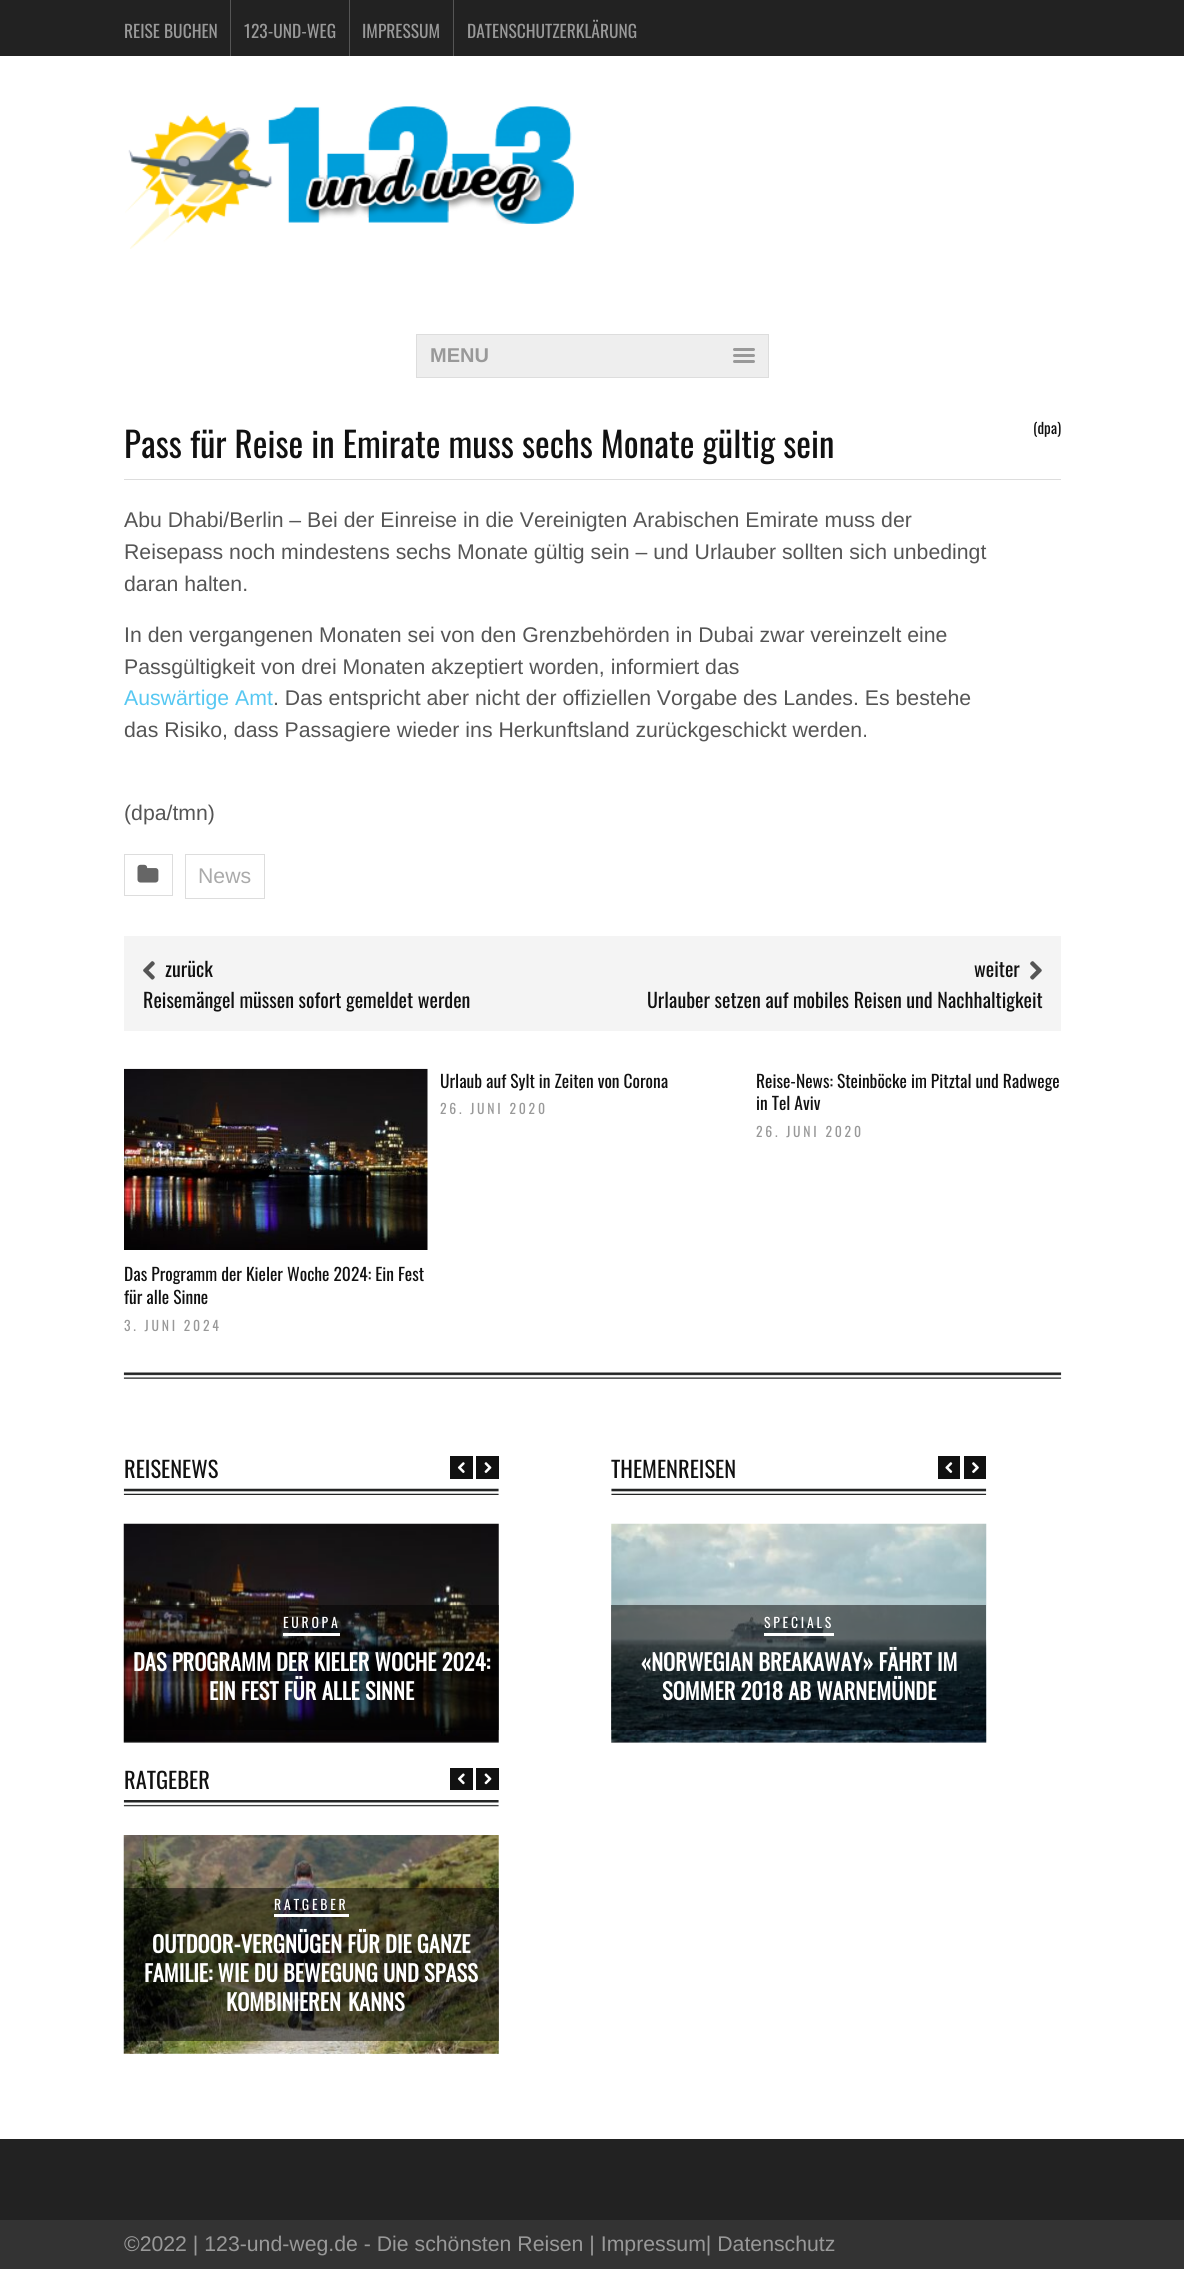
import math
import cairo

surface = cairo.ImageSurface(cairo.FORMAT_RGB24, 1184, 2291)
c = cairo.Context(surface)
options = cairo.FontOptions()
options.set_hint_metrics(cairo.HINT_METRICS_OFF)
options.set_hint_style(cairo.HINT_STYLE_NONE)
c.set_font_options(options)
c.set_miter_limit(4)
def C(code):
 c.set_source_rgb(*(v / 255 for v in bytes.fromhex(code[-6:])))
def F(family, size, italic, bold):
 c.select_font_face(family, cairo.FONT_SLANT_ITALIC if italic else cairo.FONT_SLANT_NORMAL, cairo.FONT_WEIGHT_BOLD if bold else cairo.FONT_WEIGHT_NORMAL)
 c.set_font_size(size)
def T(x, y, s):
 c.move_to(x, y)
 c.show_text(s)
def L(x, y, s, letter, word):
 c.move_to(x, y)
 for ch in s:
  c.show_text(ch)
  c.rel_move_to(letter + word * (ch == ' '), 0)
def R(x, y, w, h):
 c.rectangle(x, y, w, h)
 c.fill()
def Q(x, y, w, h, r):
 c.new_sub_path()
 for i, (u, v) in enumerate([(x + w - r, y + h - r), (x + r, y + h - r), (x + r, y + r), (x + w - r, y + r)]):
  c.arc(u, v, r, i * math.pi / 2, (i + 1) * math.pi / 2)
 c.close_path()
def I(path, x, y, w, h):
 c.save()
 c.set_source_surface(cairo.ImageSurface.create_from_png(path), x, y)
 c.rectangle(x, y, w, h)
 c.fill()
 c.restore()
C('ffffff')
c.paint()
C('222222')
R(0,0,1184,56)
C('555555')
R(230,0,1,56)
F('Oswald',17.5,0,0)
C('999999')
T(124,38,'REISE BUCHEN')
C('555555')
R(349,0,1,56)
C('999999')
T(244,38,'123-UND-WEG')
C('555555')
R(453,0,1,56)
C('999999')
T(362,38,'IMPRESSUM')
T(467,38,'DATENSCHUTZERKLÄRUNG')
I('1.png',125,106,449,143)
C('eeeeee')
c.rectangle(416.5,334.5,352,43)
c.fill_preserve()
C('dddddd')
c.set_line_width(1)
c.stroke()
F('Liberation Sans',20,0,1)
C('999999')
T(430,362,'MENU')
Q(733,348,22,3,1.5)
c.fill()
Q(733,354,22,3,1.5)
c.fill()
Q(733,360,22,3,1.5)
c.fill()
C('dddddd')
R(124,479,937,1)
F('Oswald',35,0,0)
C('111111')
T(124,458,'Pass für Reise in Emirate muss sechs Monate gültig sein')
F('Oswald',15,0,0)
T(1033,434,'(dpa)')
F('Liberation Sans',21.25,0,0)
C('555555')
T(124,527,'Abu Dhabi/Berlin – Bei der Einreise in die Vereinigten Arabischen Emirate muss der')
T(124,559,'Reisepass noch mindestens sechs Monate gültig sein – und Urlauber sollten sich unbedingt')
T(124,591,'daran halten.')
T(124,642,'In den vergangenen Monaten sei von den Grenzbehörden in Dubai zwar vereinzelt eine')
T(124,674,'Passgültigkeit von drei Monaten akzeptiert worden, informiert das')
C('57c8f2')
T(124,705,'Auswärtige Amt')
C('555555')
T(273,705,'. Das entspricht aber nicht der offiziellen Vorgabe des Landes. Es bestehe')
T(124,737,'das Risiko, dass Passagiere wieder ins Herkunftsland zurückgeschickt werden.')
T(124,820,'(dpa/tmn)')
c.rectangle(124.5,854.5,48,41)
C('dddddd')
c.stroke()
I('2.png',137,864,22,19)
c.rectangle(185.5,854.5,79,44)
c.stroke()
C('aaaaaa')
T(198,883,'News')
C('f4f4f4')
R(124,936,937,95)
I('3.png',143,961,12,19)
F('Oswald',20,0,0)
C('111111')
T(165,977,'zurück')
T(143,1008,'Reisemängel müssen sofort gemeldet werden')
T(974,977,'weiter')
I('4.png',1030,961,12,19)
T(647,1008,'Urlauber setzen auf mobiles Reisen und Nachhaltigkeit')
F('Oswald',17.5,0,0)
T(440,1088,'Urlaub auf Sylt in Zeiten von Corona')
F('Oswald',13.75,0,0)
C('999999')
L(440,1114,'26. JUNI 2020',2.75,0)
F('Oswald',17.5,0,0)
C('111111')
T(756,1088,'Reise-News: Steinböcke im Pitztal und Radwege')
T(756,1110,'in Tel Aviv')
F('Oswald',13.75,0,0)
C('999999')
L(756,1137,'26. JUNI 2020',2.75,0)
I('5.png',124,1068,304,182)
F('Oswald',17.5,0,0)
C('111111')
T(124,1281,'Das Programm der Kieler Woche 2024: Ein Fest')
T(124,1304,'für alle Sinne')
F('Oswald',13.75,0,0)
C('999999')
L(124,1331,'3. JUNI 2024',2.75,0)
I('6.png',123,1372,939,7)
I('7.png',123,1488,376,7)
F('Oswald',22.5,0,0)
C('111111')
T(124,1478,'REISENEWS')
R(450,1456,23,23)
I('8.png',457,1462,8,11)
R(476,1456,23,23)
I('9.png',484,1462,8,11)
I('10.png',123,1523,376,220)
c.set_source_rgba(0,0,0,0.5)
R(124,1605,375,125)
C('ffffff')
R(283,1633,57,3)
F('Oswald',13.75,0,0)
L(283,1628,'EUROPA',2.75,0)
F('Oswald',22.5,0,1)
T(133,1671,'DAS PROGRAMM DER KIELER WOCHE 2024:')
T(209,1700,'EIN FEST FÜR ALLE SINNE')
I('11.png',611,1488,376,7)
F('Oswald',22.5,0,0)
C('111111')
T(611,1478,'THEMENREISEN')
R(938,1456,22,23)
I('12.png',945,1462,8,11)
R(964,1456,22,23)
I('13.png',972,1462,7,11)
I('14.png',611,1523,376,220)
c.set_source_rgba(0,0,0,0.5)
R(611,1605,375,125)
C('ffffff')
R(764,1633,70,3)
F('Oswald',13.75,0,0)
L(764,1628,'SPECIALS',2.75,0)
F('Oswald',22.5,0,1)
T(641,1671,'«NORWEGIAN BREAKAWAY» FÄHRT IM')
T(662,1700,'SOMMER 2018 AB WARNEMÜNDE')
I('15.png',123,1800,376,7)
F('Oswald',22.5,0,0)
C('111111')
T(124,1789,'RATGEBER')
R(450,1768,23,22)
I('16.png',457,1773,8,12)
R(476,1768,23,22)
I('17.png',484,1773,8,12)
I('18.png',123,1835,376,219)
c.set_source_rgba(0,0,0,0.5)
R(124,1888,375,153)
C('ffffff')
R(274,1914,75,3)
F('Oswald',13.75,0,0)
L(274,1910,'RATGEBER',2.75,0)
F('Oswald',22.5,0,1)
T(152,1953,'OUTDOOR-VERGNÜGEN FÜR DIE GANZE')
T(144,1982,'FAMILIE: WIE DU BEWEGUNG UND SPASS')
L(226,2011,'KOMBINIEREN KANNS',0,2)
C('222222')
R(0,2139,1184,81)
C('333333')
R(0,2220,1184,49)
F('Liberation Sans',21.25,0,0)
C('999999')
T(124,2251,'©2022 | 123-und-weg.de - Die schönsten Reisen | Impressum| Datenschutz')
surface.write_to_png('o.png')
